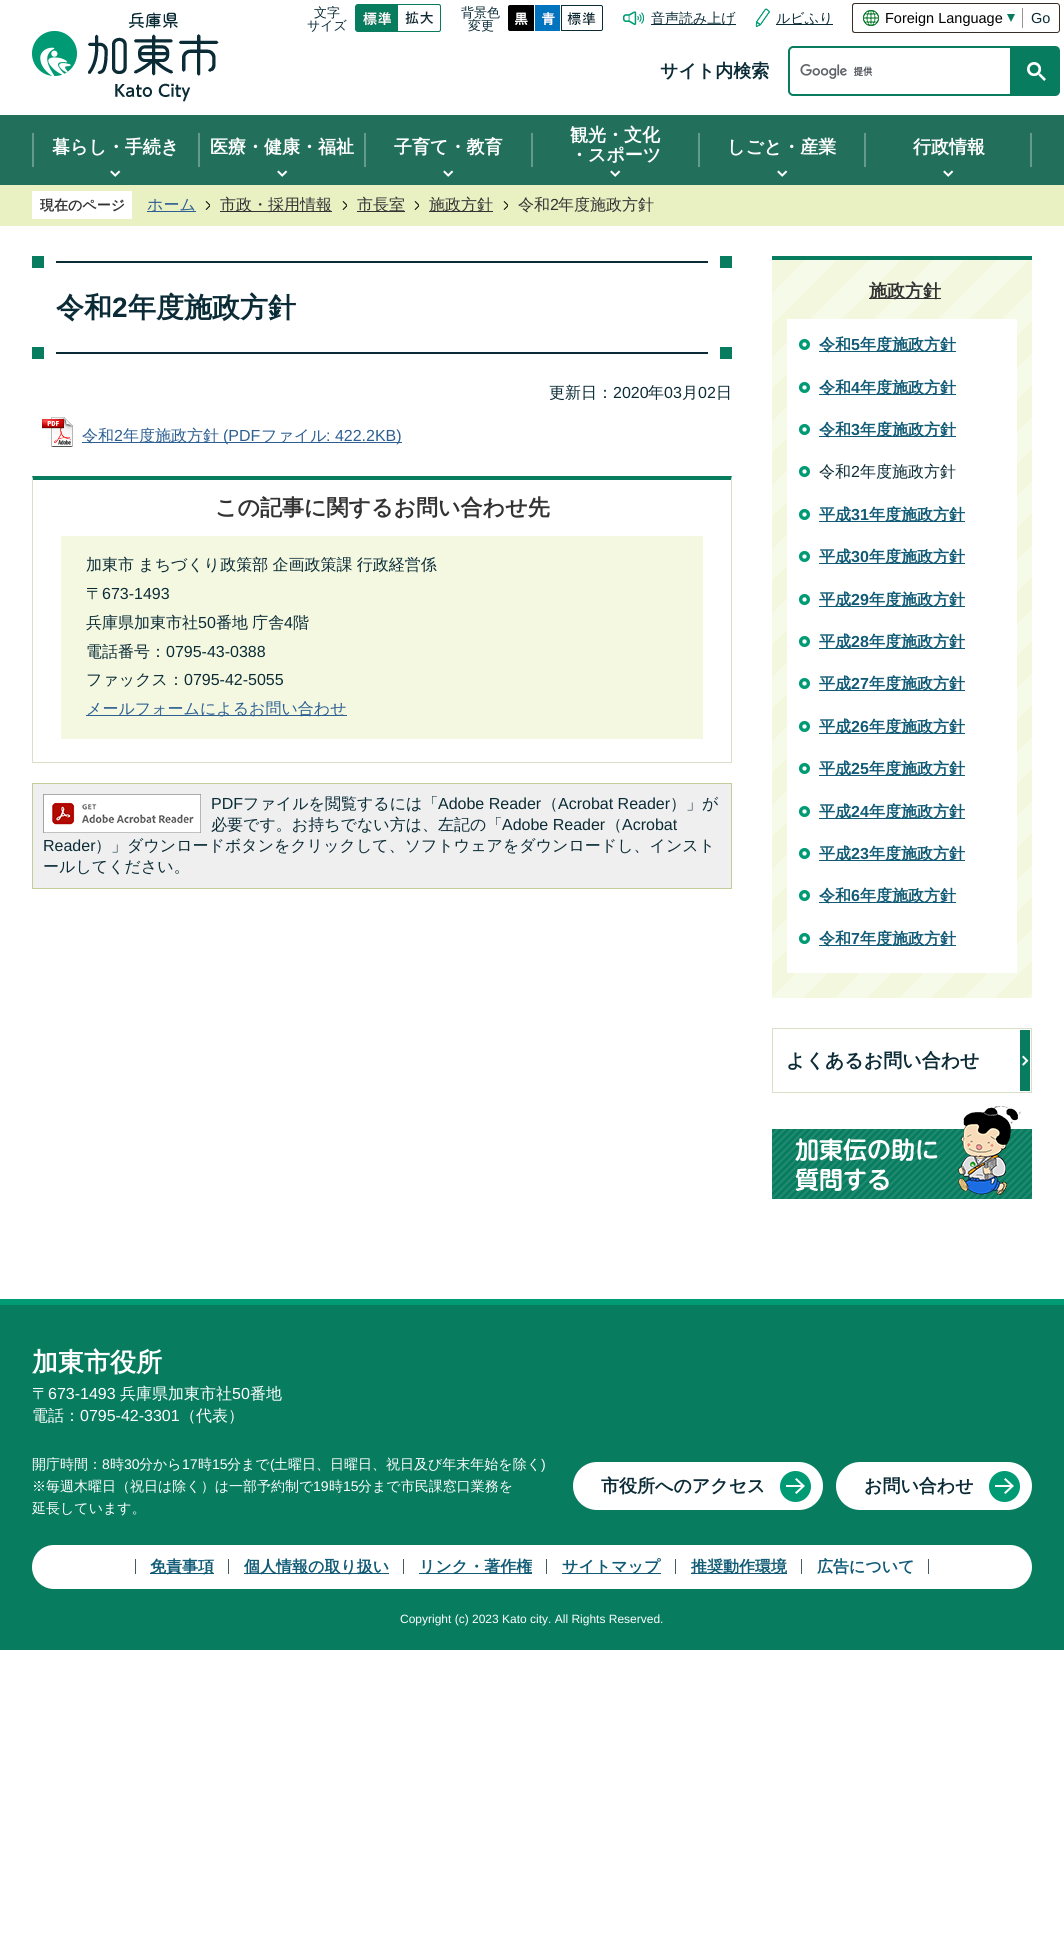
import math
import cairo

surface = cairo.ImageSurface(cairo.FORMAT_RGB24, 1064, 1946)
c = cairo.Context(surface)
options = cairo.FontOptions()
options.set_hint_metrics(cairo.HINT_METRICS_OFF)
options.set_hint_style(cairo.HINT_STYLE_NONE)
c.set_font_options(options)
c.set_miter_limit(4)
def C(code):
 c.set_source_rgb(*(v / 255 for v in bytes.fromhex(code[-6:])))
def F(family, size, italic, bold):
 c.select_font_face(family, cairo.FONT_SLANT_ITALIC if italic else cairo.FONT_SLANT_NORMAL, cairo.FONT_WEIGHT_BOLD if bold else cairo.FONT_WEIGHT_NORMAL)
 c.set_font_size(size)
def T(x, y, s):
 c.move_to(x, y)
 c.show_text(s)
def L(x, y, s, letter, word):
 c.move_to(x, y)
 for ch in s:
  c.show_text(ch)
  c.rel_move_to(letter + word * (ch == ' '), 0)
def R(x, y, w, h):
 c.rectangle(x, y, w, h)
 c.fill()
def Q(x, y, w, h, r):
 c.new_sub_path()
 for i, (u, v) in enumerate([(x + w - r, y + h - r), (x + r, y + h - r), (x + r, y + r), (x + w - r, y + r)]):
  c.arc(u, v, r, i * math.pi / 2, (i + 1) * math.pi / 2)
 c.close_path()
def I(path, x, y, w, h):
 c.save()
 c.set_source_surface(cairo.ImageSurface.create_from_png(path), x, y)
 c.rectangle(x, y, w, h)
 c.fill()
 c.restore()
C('ffffff')
c.paint()
I('1.png',32,12,187,90)
F('WenQuanYi Zen Hei Medium',13,0,0)
C('0b2c37')
T(314,17,'文字')
T(307,30,'サイズ')
I('2.png',355,4,43,28)
I('3.png',398,4,43,28)
T(461,17,'背景色')
T(468,30,'変更')
I('4.png',508,5,26,26)
I('5.png',535,5,25,26)
I('6.png',561,5,42,26)
I('7.png',623,11,21,14)
R(651,24,85,1)
F('WenQuanYi Zen Hei Medium',14,0,0)
T(651,23,'音声読み上げ')
I('8.png',755,8,15,19)
R(776,24,57,1)
T(776,23,'ルビふり')
I('9.png',863,10,16,16)
C('382d25')
c.set_fill_rule(cairo.FILL_RULE_EVEN_ODD)
c.new_path()
c.move_to(855,3)
c.line_to(1022,3)
c.line_to(1022,33)
c.line_to(855,33)
c.curve_to(853,33,852,32,852,30)
c.line_to(852,6)
c.curve_to(852,4,853,3,855,3)
c.close_path()
c.move_to(855,4)
c.line_to(1022,4)
c.line_to(1022,32)
c.line_to(855,32)
c.curve_to(854,32,853,31,853,30)
c.line_to(853,6)
c.curve_to(853,5,854,4,855,4)
c.close_path()
c.fill()
F('Liberation Sans',14.5,0,0)
C('000000')
T(885,23,'Foreign Language')
C('077c5f')
c.set_fill_rule(cairo.FILL_RULE_WINDING)
c.new_path()
c.move_to(1007,14)
c.line_to(1015,14)
c.line_to(1011,22)
c.close_path()
c.fill()
C('382d25')
c.set_fill_rule(cairo.FILL_RULE_EVEN_ODD)
c.new_path()
c.move_to(1022,3)
c.line_to(1057,3)
c.curve_to(1058.5,3,1060,4.5,1060,6)
c.line_to(1060,30)
c.curve_to(1060,31.5,1058.5,33,1057,33)
c.line_to(1022,33)
c.close_path()
c.move_to(1022,4)
c.line_to(1057,4)
c.curve_to(1058,4,1059,5,1059,6)
c.line_to(1059,30)
c.curve_to(1059,31,1058,32,1057,32)
c.line_to(1022,32)
c.close_path()
c.fill()
C('9b948c')
R(1022,8,1,20)
C('0b2c37')
T(1031,23,'Go')
F('WenQuanYi Zen Hei',18,0,1)
T(660,77,'サイト内検索')
c.new_path()
c.move_to(793,47)
c.line_to(1011,47)
c.line_to(1011,95)
c.line_to(793,95)
c.curve_to(791,95,789,93,789,91)
c.line_to(789,51)
c.curve_to(789,49,791,47,793,47)
c.close_path()
C('077c5f')
c.stroke()
I('10.png',800,64,73,15)
c.new_path()
c.move_to(1012,46)
c.line_to(1055,46)
c.curve_to(1058,46,1060,48,1060,51)
c.line_to(1060,91)
c.curve_to(1060,94,1058,96,1055,96)
c.line_to(1012,96)
c.close_path()
c.fill()
I('11.png',1027,62,19,19)
C('22705c')
R(0,115,1064,70)
I('12.png',110,170,11,7)
C('649b8d')
R(32,133,2,34)
C('ffffff')
T(52,153,'暮らし・手続き')
C('649b8d')
R(198,133,2,34)
I('12.png',277,170,11,7)
C('ffffff')
T(210,153,'医療・健康・福祉')
C('649b8d')
R(364,133,2,34)
I('12.png',443,170,11,7)
C('ffffff')
T(394,153,'子育て・教育')
C('649b8d')
R(531,133,2,34)
I('12.png',610,170,11,7)
C('ffffff')
T(570,141,'観光・文化')
T(570,161,'・スポーツ')
C('649b8d')
R(698,133,2,34)
I('12.png',777,170,11,7)
C('ffffff')
T(727,153,'しごと・産業')
C('649b8d')
R(864,133,2,34)
I('12.png',943,170,11,7)
C('ffffff')
T(913,153,'行政情報')
C('649b8d')
R(1030,133,2,34)
C('e9f1c3')
R(0,185,1064,41)
C('ffffff')
R(32,191,100,28)
F('WenQuanYi Zen Hei',14,0,1)
C('333333')
T(40,210,'現在のページ')
C('2d5f92')
R(147,211,49,1)
F('WenQuanYi Zen Hei Medium',16,0,0)
T(147,210,'ホーム')
I('13.png',205,201,5,9)
C('333333')
R(220,211,112,1)
T(220,210,'市政・採用情報')
I('13.png',342,201,5,9)
R(357,211,48,1)
T(357,210,'市長室')
I('13.png',414,201,5,9)
R(429,211,64,1)
T(429,210,'施政方針')
I('13.png',503,201,5,9)
T(518,210,'令和')
F('Liberation Sans',16,0,0)
T(550,210,'2')
F('WenQuanYi Zen Hei Medium',16,0,0)
T(558,210,'年度施政方針')
C('077c5f')
R(32,256,12,12)
R(720,256,12,12)
C('0b2c37')
R(56,261,652,2)
R(56,352,652,2)
F('WenQuanYi Zen Hei',28,0,1)
T(56,317,'令和')
F('Liberation Sans',28,0,1)
T(112,317,'2')
F('WenQuanYi Zen Hei',28,0,1)
T(128,317,'年度施政方針')
C('077c5f')
R(32,347,12,12)
R(720,347,12,12)
F('WenQuanYi Zen Hei Medium',16,0,0)
C('0b2c37')
T(549,398,'更新日：')
F('Liberation Sans',16,0,0)
T(613,398,'2020')
F('WenQuanYi Zen Hei Medium',16,0,0)
T(648,398,'年')
F('Liberation Sans',16,0,0)
T(664,398,'03')
F('WenQuanYi Zen Hei Medium',16,0,0)
T(682,398,'月')
F('Liberation Sans',16,0,0)
T(698,398,'02')
F('WenQuanYi Zen Hei Medium',16,0,0)
T(716,398,'日')
I('14.png',42,417,31,30)
C('2d5f92')
R(82,442,320,1)
T(82,441,'令和')
F('Liberation Sans',16,0,0)
T(114,441,'2')
F('WenQuanYi Zen Hei Medium',16,0,0)
T(123,441,'年度施政方針')
F('Liberation Sans',16,0,0)
T(223,441,'(PDF')
F('WenQuanYi Zen Hei Medium',16,0,0)
T(261,441,'ファイル')
F('Liberation Sans',16,0,0)
T(326,441,': 422.2KB)')
C('077c5f')
c.set_fill_rule(cairo.FILL_RULE_WINDING)
c.new_path()
c.move_to(32,476)
c.line_to(732,476)
c.line_to(731,480)
c.line_to(33,480)
c.close_path()
c.fill()
C('dadec7')
c.new_path()
c.move_to(732,476)
c.line_to(732,763)
c.line_to(731,762)
c.line_to(731,480)
c.close_path()
c.fill()
R(32,762,700,1)
c.new_path()
c.move_to(32,763)
c.line_to(32,476)
c.line_to(33,480)
c.line_to(33,762)
c.close_path()
c.fill()
F('WenQuanYi Zen Hei',22,0,1)
C('333333')
T(215,515,'この記事に関するお問い合わせ先')
C('f4f8e1')
R(61,536,642,203)
F('WenQuanYi Zen Hei Medium',16,0,0)
C('0b2c37')
L(86,570,'加東市 まちづくり政策部 企画政策課 行政経営係',0,-.5)
T(86,599,'〒')
F('Liberation Sans',16,0,0)
T(102,599,'673-1493')
F('WenQuanYi Zen Hei Medium',16,0,0)
T(86,628,'兵庫県加東市社')
F('Liberation Sans',16,0,0)
T(198,628,'50')
F('WenQuanYi Zen Hei Medium',16,0,0)
L(216,628,'番地 庁舎',0,-.5)
F('Liberation Sans',16,0,0)
T(284,628,'4')
F('WenQuanYi Zen Hei Medium',16,0,0)
T(293,628,'階')
T(86,657,'電話番号：')
F('Liberation Sans',16,0,0)
T(166,657,'0795-43-0388')
F('WenQuanYi Zen Hei Medium',16,0,0)
T(86,685,'ファックス：')
F('Liberation Sans',16,0,0)
T(184,685,'0795-42-5055')
C('2d5f92')
R(86,715,261,1)
F('WenQuanYi Zen Hei Medium',16,0,0)
T(86,714,'メールフォームによるお問い合わせ')
C('efefef')
c.rectangle(32.5,783.5,699,105)
c.fill_preserve()
C('c4cd9a')
c.set_line_width(1)
c.stroke()
I('15.png',43,794,158,39)
F('Liberation Sans',16,0,0)
C('0b2c37')
T(211,809,'PDF')
F('WenQuanYi Zen Hei Medium',16,0,0)
T(243,809,'ファイルを閲覧するには「')
F('Liberation Sans',16,0,0)
T(438,809,'Adobe Reader')
F('WenQuanYi Zen Hei Medium',16,0,0)
T(542,809,'（')
F('Liberation Sans',16,0,0)
T(558,809,'Acrobat Reader')
F('WenQuanYi Zen Hei Medium',16,0,0)
T(670,809,'）」が')
T(211,830,'必要です。お持ちでない方は、左記の「')
F('Liberation Sans',16,0,0)
T(502,830,'Adobe Reader')
F('WenQuanYi Zen Hei Medium',16,0,0)
T(606,830,'（')
F('Liberation Sans',16,0,0)
T(622,830,'Acrobat')
T(43,851,'Reader')
F('WenQuanYi Zen Hei Medium',16,0,0)
T(95,851,'）」ダウンロードボタンをクリックして、ソフトウェアをダウンロードし、インスト')
T(43,872,'ールしてください。')
I('16.png',772,260,260,738)
C('077c5f')
R(772,256,260,4)
C('333333')
R(869,298,72,1)
F('WenQuanYi Zen Hei',18,0,1)
T(869,297,'施政方針')
C('ffffff')
R(787,319,230,654)
I('17.png',799,339,11,11)
C('115b76')
R(819,351,137,1)
F('WenQuanYi Zen Hei',16,0,1)
T(819,350,'令和')
F('Liberation Sans',16,0,1)
T(851,350,'5')
F('WenQuanYi Zen Hei',16,0,1)
T(860,350,'年度施政方針')
I('17.png',799,382,11,11)
R(819,394,137,1)
T(819,393,'令和')
F('Liberation Sans',16,0,1)
T(851,393,'4')
F('WenQuanYi Zen Hei',16,0,1)
T(860,393,'年度施政方針')
I('17.png',799,424,11,11)
R(819,436,137,1)
T(819,435,'令和')
F('Liberation Sans',16,0,1)
T(851,435,'3')
F('WenQuanYi Zen Hei',16,0,1)
T(860,435,'年度施政方針')
I('17.png',799,466,11,11)
F('WenQuanYi Zen Hei Medium',16,0,0)
C('0b2c37')
T(819,477,'令和')
F('Liberation Sans',16,0,0)
T(851,477,'2')
F('WenQuanYi Zen Hei Medium',16,0,0)
T(860,477,'年度施政方針')
I('17.png',799,509,11,11)
C('115b76')
R(819,521,146,1)
F('WenQuanYi Zen Hei',16,0,1)
T(819,520,'平成')
F('Liberation Sans',16,0,1)
T(851,520,'31')
F('WenQuanYi Zen Hei',16,0,1)
T(869,520,'年度施政方針')
I('17.png',799,551,11,11)
R(819,563,146,1)
T(819,562,'平成')
F('Liberation Sans',16,0,1)
T(851,562,'30')
F('WenQuanYi Zen Hei',16,0,1)
T(869,562,'年度施政方針')
I('17.png',799,594,11,11)
R(819,606,146,1)
T(819,605,'平成')
F('Liberation Sans',16,0,1)
T(851,605,'29')
F('WenQuanYi Zen Hei',16,0,1)
T(869,605,'年度施政方針')
I('17.png',799,636,11,11)
R(819,648,146,1)
T(819,647,'平成')
F('Liberation Sans',16,0,1)
T(851,647,'28')
F('WenQuanYi Zen Hei',16,0,1)
T(869,647,'年度施政方針')
I('17.png',799,678,11,11)
R(819,690,146,1)
T(819,689,'平成')
F('Liberation Sans',16,0,1)
T(851,689,'27')
F('WenQuanYi Zen Hei',16,0,1)
T(869,689,'年度施政方針')
I('17.png',799,721,11,11)
R(819,733,146,1)
T(819,732,'平成')
F('Liberation Sans',16,0,1)
T(851,732,'26')
F('WenQuanYi Zen Hei',16,0,1)
T(869,732,'年度施政方針')
I('17.png',799,763,11,11)
R(819,775,146,1)
T(819,774,'平成')
F('Liberation Sans',16,0,1)
T(851,774,'25')
F('WenQuanYi Zen Hei',16,0,1)
T(869,774,'年度施政方針')
I('17.png',799,806,11,11)
R(819,818,146,1)
T(819,817,'平成')
F('Liberation Sans',16,0,1)
T(851,817,'24')
F('WenQuanYi Zen Hei',16,0,1)
T(869,817,'年度施政方針')
I('17.png',799,848,11,11)
R(819,860,146,1)
T(819,859,'平成')
F('Liberation Sans',16,0,1)
T(851,859,'23')
F('WenQuanYi Zen Hei',16,0,1)
T(869,859,'年度施政方針')
I('17.png',799,890,11,11)
R(819,902,137,1)
T(819,901,'令和')
F('Liberation Sans',16,0,1)
T(851,901,'6')
F('WenQuanYi Zen Hei',16,0,1)
T(860,901,'年度施政方針')
I('17.png',799,933,11,11)
R(819,945,137,1)
T(819,944,'令和')
F('Liberation Sans',16,0,1)
T(851,944,'7')
F('WenQuanYi Zen Hei',16,0,1)
T(860,944,'年度施政方針')
c.rectangle(772.5,1028.5,259,64)
C('dadec7')
c.stroke()
F('WenQuanYi Zen Hei',19,0,1)
C('0b2c37')
T(786,1067,'よくあるお問い合わせ')
C('077c5f')
R(1020,1030,10,61)
I('18.png',1022,1055,7,11)
I('19.png',772,1106,260,93)
R(0,1305,1064,345)
C('009b74')
R(0,1299,1064,6)
F('WenQuanYi Zen Hei',26,0,1)
C('ffffff')
T(32,1371,'加東市役所')
F('WenQuanYi Zen Hei Medium',16,0,0)
T(32,1399,'〒')
F('Liberation Sans',16,0,0)
T(48,1399,'673-1493')
F('WenQuanYi Zen Hei Medium',16,0,0)
T(120,1399,'兵庫県加東市社')
F('Liberation Sans',16,0,0)
T(232,1399,'50')
F('WenQuanYi Zen Hei Medium',16,0,0)
T(250,1399,'番地')
T(32,1421,'電話：')
F('Liberation Sans',16,0,0)
T(80,1421,'0795-42-3301')
F('WenQuanYi Zen Hei Medium',16,0,0)
T(180,1421,'（代表）')
F('WenQuanYi Zen Hei Medium',14,0,0)
T(32,1469,'開庁時間：')
F('Liberation Sans',14,0,0)
T(102,1469,'8')
F('WenQuanYi Zen Hei Medium',14,0,0)
T(110,1469,'時')
F('Liberation Sans',14,0,0)
T(124,1469,'30')
F('WenQuanYi Zen Hei Medium',14,0,0)
T(139,1469,'分から')
F('Liberation Sans',14,0,0)
T(182,1469,'17')
F('WenQuanYi Zen Hei Medium',14,0,0)
T(198,1469,'時')
F('Liberation Sans',14,0,0)
T(212,1469,'15')
F('WenQuanYi Zen Hei Medium',14,0,0)
T(227,1469,'分まで')
F('Liberation Sans',14,0,0)
T(270,1469,'(')
F('WenQuanYi Zen Hei Medium',14,0,0)
T(274,1469,'土曜日、日曜日、祝日及び年末年始を除く')
F('Liberation Sans',14,0,0)
T(541,1469,')')
F('WenQuanYi Zen Hei Medium',14,0,0)
T(32,1491,'※毎週木曜日（祝日は除く）は一部予約制で')
F('Liberation Sans',14,0,0)
T(313,1491,'19')
F('WenQuanYi Zen Hei Medium',14,0,0)
T(329,1491,'時')
F('Liberation Sans',14,0,0)
T(343,1491,'15')
F('WenQuanYi Zen Hei Medium',14,0,0)
T(358,1491,'分まで市民課窓口業務を')
T(32,1513,'延長しています。')
Q(573,1462,250,48,24)
c.fill()
I('20.png',780,1471,31,31)
F('WenQuanYi Zen Hei',18,0,1)
C('0b2c37')
T(601,1492,'市役所へのアクセス')
C('ffffff')
Q(836,1462,196,48,24)
c.fill()
I('20.png',989,1471,31,31)
C('0b2c37')
T(864,1492,'お問い合わせ')
C('ffffff')
Q(32,1545,1000,44,22)
c.fill()
C('48585f')
R(135,1559,1,15)
C('115b76')
R(150,1573,64,1)
F('WenQuanYi Zen Hei',16,0,1)
T(150,1572,'免責事項')
C('48585f')
R(228,1559,1,15)
C('115b76')
R(244,1573,145,1)
T(244,1572,'個人情報の取り扱い')
C('48585f')
R(403,1559,1,15)
C('115b76')
R(419,1573,113,1)
T(419,1572,'リンク・著作権')
C('48585f')
R(546,1559,1,15)
C('115b76')
R(562,1573,99,1)
T(562,1572,'サイトマップ')
C('48585f')
R(675,1559,1,15)
C('115b76')
R(691,1573,96,1)
T(691,1572,'推奨動作環境')
C('48585f')
R(801,1559,1,15)
C('115b76')
T(817,1572,'広告について')
C('48585f')
R(928,1559,1,15)
F('Liberation Sans',12,0,0)
C('ffffff')
T(400,1623,'Copyright (c) 2023 Kato city. All Rights Reserved.')
surface.write_to_png('o.png')
